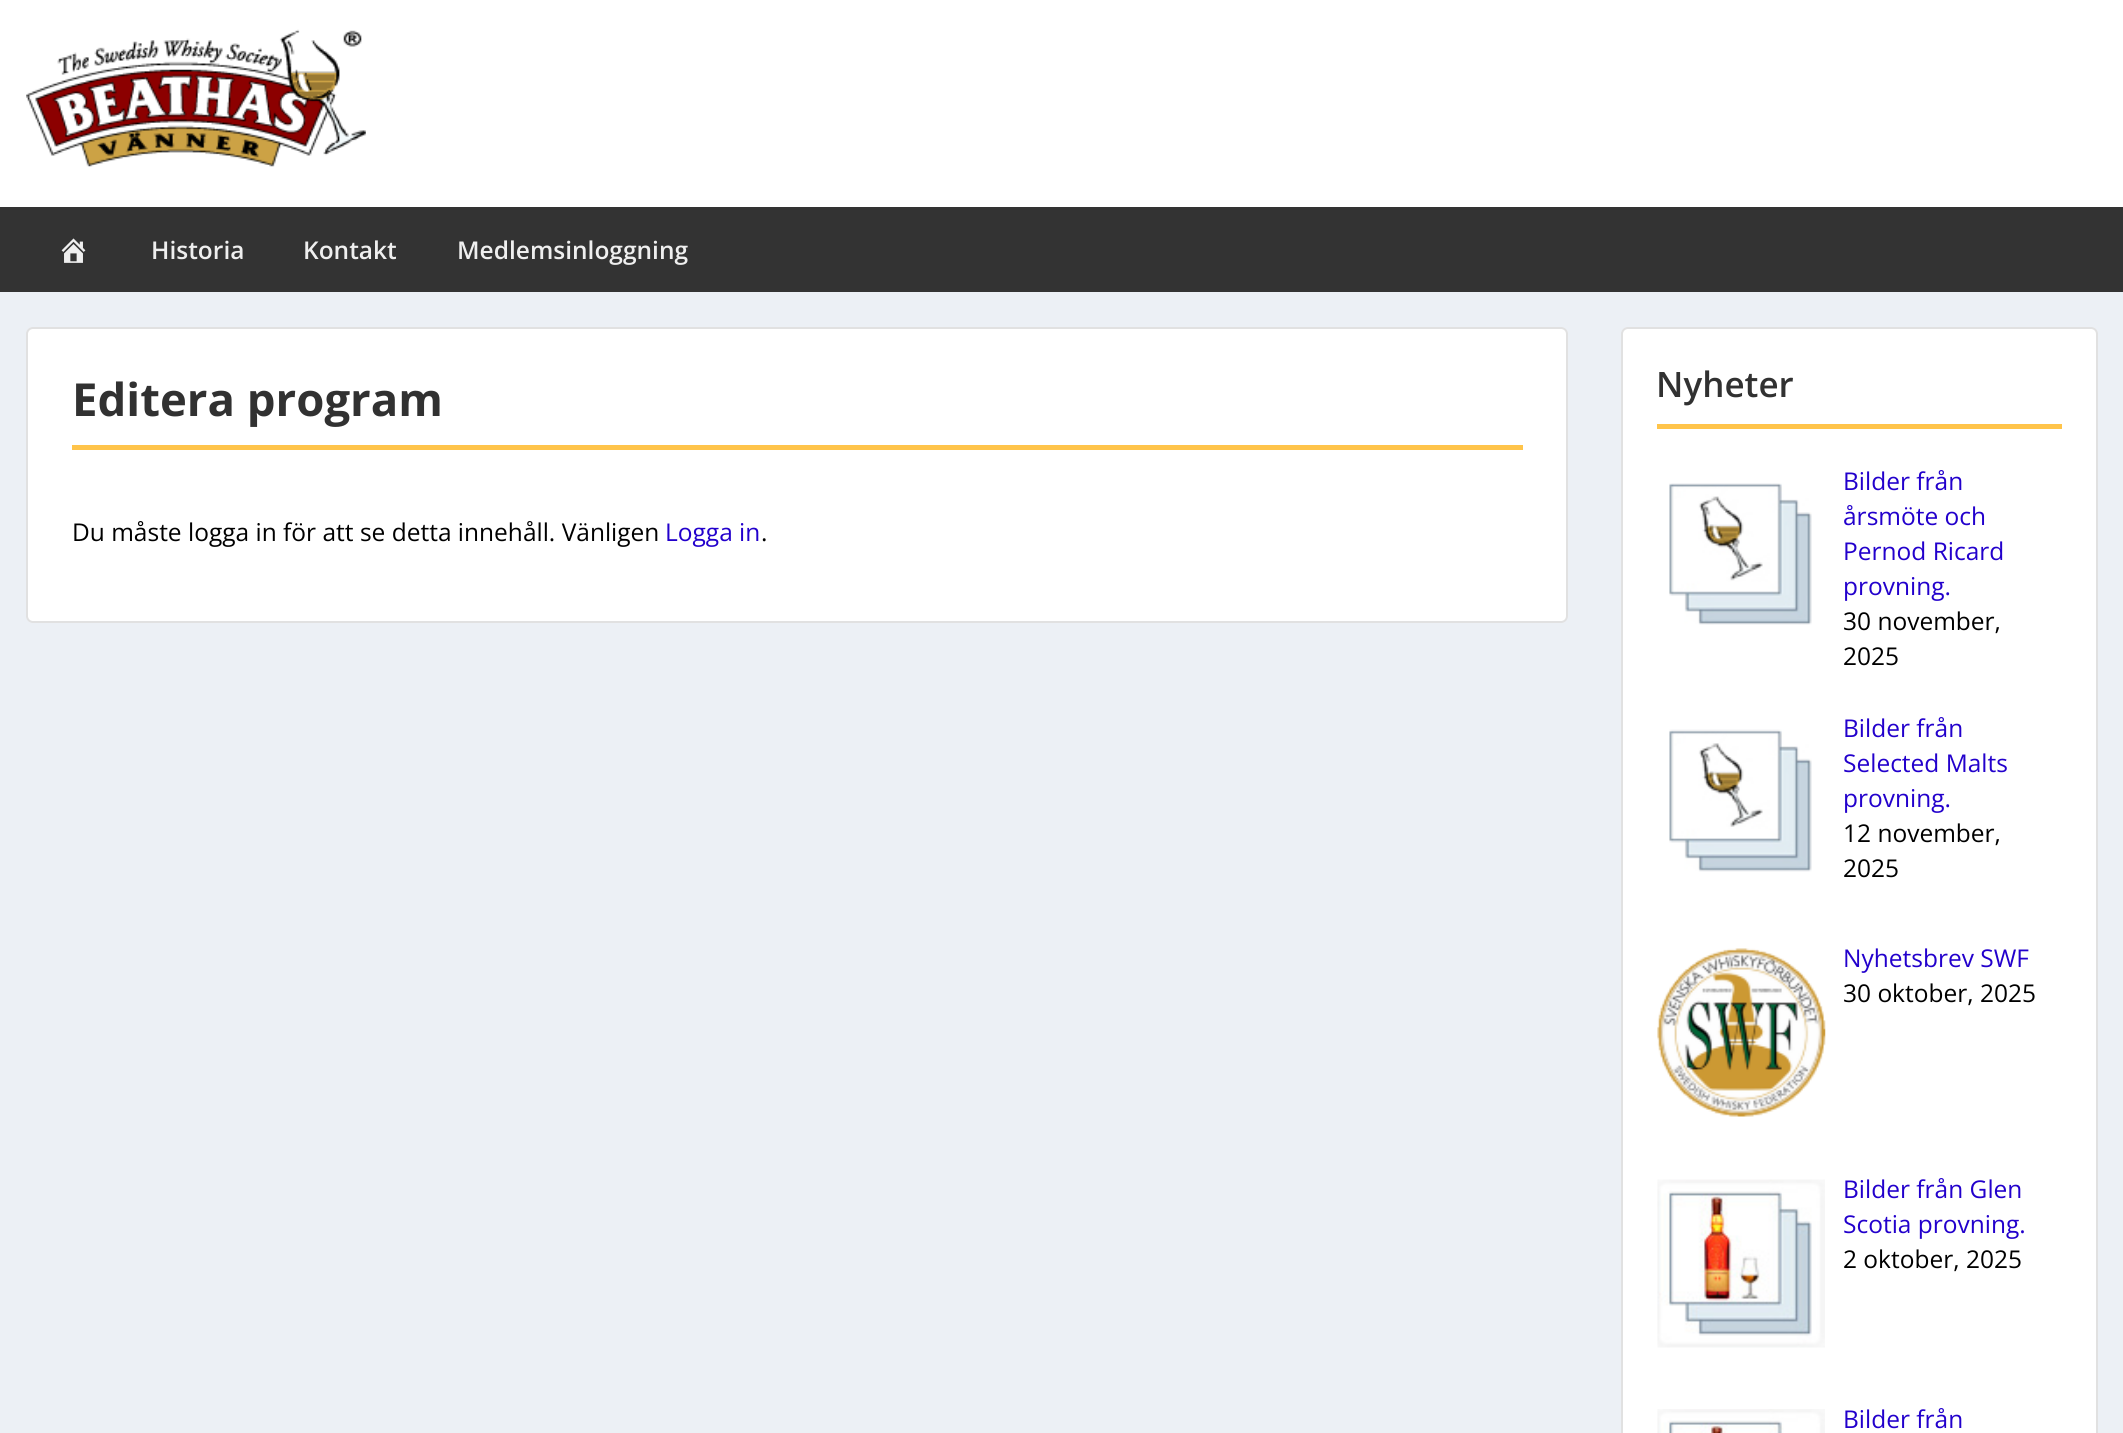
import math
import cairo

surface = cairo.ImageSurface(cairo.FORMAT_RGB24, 2123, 1433)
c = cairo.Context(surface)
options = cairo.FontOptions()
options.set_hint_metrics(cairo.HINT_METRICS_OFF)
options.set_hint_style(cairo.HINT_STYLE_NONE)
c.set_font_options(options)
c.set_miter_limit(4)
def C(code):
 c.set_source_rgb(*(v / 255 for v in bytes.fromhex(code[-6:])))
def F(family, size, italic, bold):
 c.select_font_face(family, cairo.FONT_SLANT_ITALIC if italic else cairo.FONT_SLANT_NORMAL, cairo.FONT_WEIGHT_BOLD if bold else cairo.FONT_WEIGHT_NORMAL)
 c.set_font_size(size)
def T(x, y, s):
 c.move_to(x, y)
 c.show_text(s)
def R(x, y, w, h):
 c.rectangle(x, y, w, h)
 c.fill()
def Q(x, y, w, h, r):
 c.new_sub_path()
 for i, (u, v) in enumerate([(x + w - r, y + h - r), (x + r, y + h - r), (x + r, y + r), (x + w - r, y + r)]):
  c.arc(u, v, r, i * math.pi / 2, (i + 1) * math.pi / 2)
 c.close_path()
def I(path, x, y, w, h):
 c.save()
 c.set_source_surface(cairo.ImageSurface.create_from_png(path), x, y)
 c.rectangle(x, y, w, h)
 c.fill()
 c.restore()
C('ecf0f5')
c.paint()
C('ffffff')
R(0,0,2123,207)
I('1.png',26,29,340,138)
C('333333')
R(0,207,2123,85)
I('2.png',61,238,25,25)
F('Open Sans SemiBold',24.5,0,0)
C('efefef')
T(151,259,'Historia')
T(303,259,'Kontakt')
T(457,259,'Medlemsinloggning')
C('ffffff')
Q(26,327,1542,296,7)
c.fill()
Q(27,328,1540,294,6)
c.set_source_rgba(0,0,0,0.12)
c.stroke()
C('ffc44a')
R(72,445,1451,5)
F('Open Sans',45.5,0,1)
C('313131')
T(72,416,'Editera program')
F('Open Sans',24.5,0,0)
C('000000')
T(72,541,'Du måste logga in för att se detta innehåll. Vänligen')
C('2200cc')
T(665,541,'Logga in')
C('000000')
T(761,541,'.')
C('ffffff')
Q(1621,327,477,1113,7)
c.fill()
Q(1622,328,475,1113,6)
c.set_source_rgba(0,0,0,0.12)
c.stroke()
C('ffc44a')
R(1657,424,405,5)
F('Open Sans SemiBold',35,0,0)
C('313131')
T(1656,397,'Nyheter')
F('Open Sans',24.5,0,0)
C('2200cc')
T(1843,490,'Bilder från')
I('3.png',1669,483,143,142)
T(1843,525,'årsmöte och')
T(1843,560,'Pernod Ricard')
T(1843,595,'provning.')
C('000000')
T(1843,630,'30 november,')
T(1843,665,'2025')
I('4.png',1669,729,143,143)
C('2200cc')
T(1843,737,'Bilder från')
T(1843,772,'Selected Malts')
T(1843,807,'provning.')
C('000000')
T(1843,842,'12 november,')
T(1843,877,'2025')
I('5.png',1657,948,169,169)
C('2200cc')
T(1843,967,'Nyhetsbrev SWF')
C('000000')
T(1843,1002,'30 oktober, 2025')
I('6.png',1657,1179,168,169)
C('2200cc')
T(1843,1198,'Bilder från Glen')
T(1843,1233,'Scotia provning.')
C('000000')
T(1843,1268,'2 oktober, 2025')
I('7.png',1657,1409,168,24)
C('2200cc')
T(1843,1428,'Bilder från')
surface.write_to_png('o.png')
